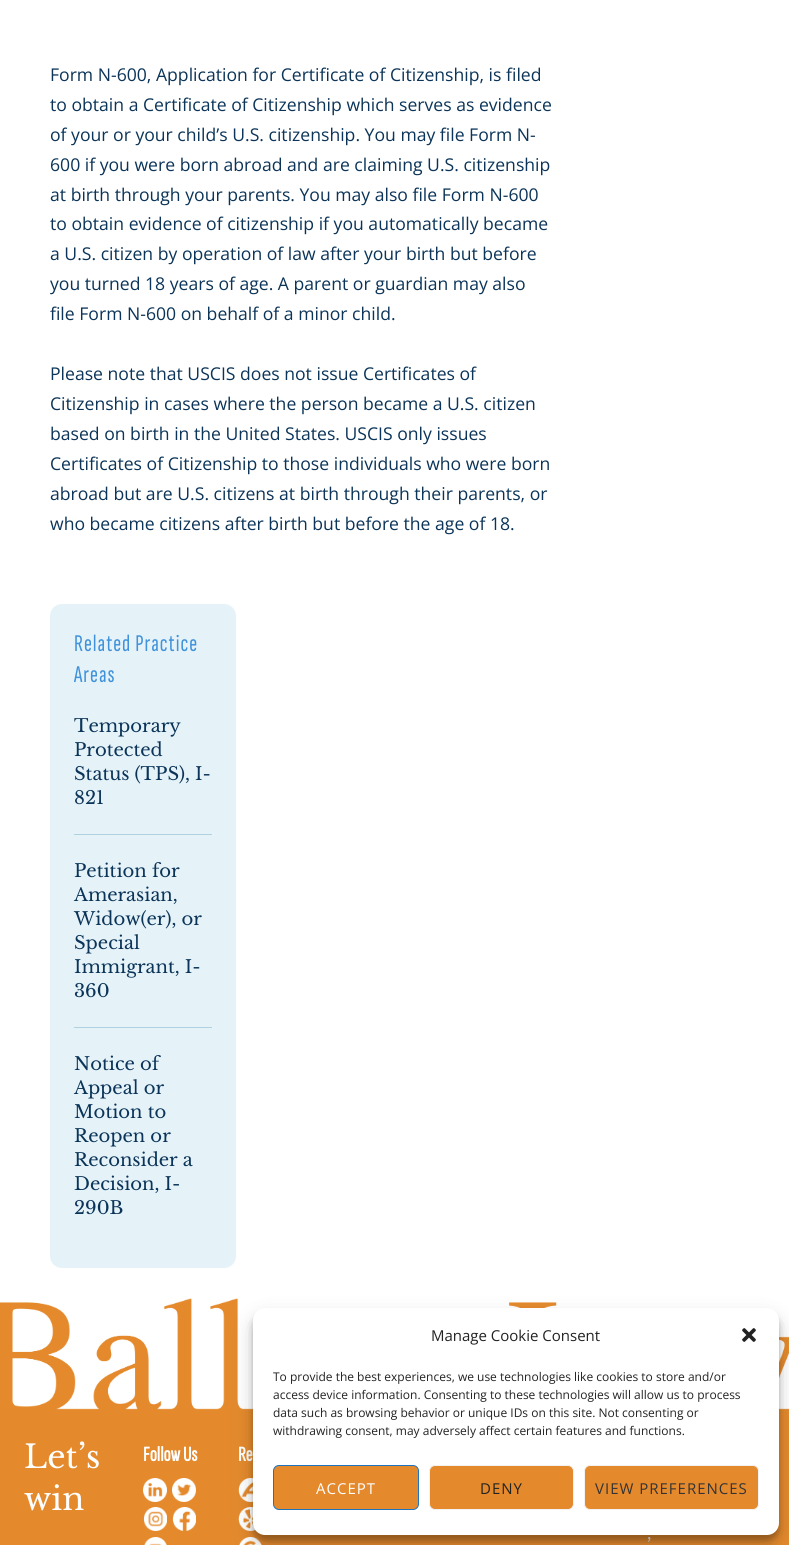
import math
import cairo

surface = cairo.ImageSurface(cairo.FORMAT_RGB24, 789, 1545)
c = cairo.Context(surface)
options = cairo.FontOptions()
options.set_hint_metrics(cairo.HINT_METRICS_OFF)
options.set_hint_style(cairo.HINT_STYLE_NONE)
c.set_font_options(options)
c.set_miter_limit(4)
def C(code):
 c.set_source_rgb(*(v / 255 for v in bytes.fromhex(code[-6:])))
def F(family, size, italic, bold):
 c.select_font_face(family, cairo.FONT_SLANT_ITALIC if italic else cairo.FONT_SLANT_NORMAL, cairo.FONT_WEIGHT_BOLD if bold else cairo.FONT_WEIGHT_NORMAL)
 c.set_font_size(size)
def T(x, y, s):
 c.move_to(x, y)
 c.show_text(s)
def L(x, y, s, letter, word):
 c.move_to(x, y)
 for ch in s:
  c.show_text(ch)
  c.rel_move_to(letter + word * (ch == ' '), 0)
def R(x, y, w, h):
 c.rectangle(x, y, w, h)
 c.fill()
def Q(x, y, w, h, r):
 c.new_sub_path()
 for i, (u, v) in enumerate([(x + w - r, y + h - r), (x + r, y + h - r), (x + r, y + r), (x + w - r, y + r)]):
  c.arc(u, v, r, i * math.pi / 2, (i + 1) * math.pi / 2)
 c.close_path()
def S(x, y, w, h, r, blur, alpha):
 c.push_group_with_content(cairo.CONTENT_ALPHA)
 c.set_operator(cairo.OPERATOR_SOURCE)
 for i in range(15, -16, -2):
  e = blur * i / 6
  if min(w, h) + 2 * e > 0:
   c.set_source_rgba(0, 0, 0, alpha * math.erfc((i - 1) / 8.5) / 2)
   Q(x - e, y - e, w + 2 * e, h + 2 * e, max(0, min(r + e + blur * .6, min(w, h) / 2 + e)))
   c.fill()
 c.mask(c.pop_group())
def I(path, x, y, w, h):
 c.save()
 c.set_source_surface(cairo.ImageSurface.create_from_png(path), x, y)
 c.rectangle(x, y, w, h)
 c.fill()
 c.restore()
C('ffffff')
c.paint()
F('Open Sans',17.6,0,0)
C('0b3458')
T(50,81,'Form N-600, Application for Certificate of Citizenship, is filed')
T(50,111,'to obtain a Certificate of Citizenship which serves as evidence')
T(50,141,'of your or your child’s U.S. citizenship. You may file Form N-')
T(50,171,'600 if you were born abroad and are claiming U.S. citizenship')
T(50,201,'at birth through your parents. You may also file Form N-600')
T(50,230,'to obtain evidence of citizenship if you automatically became')
T(50,260,'a U.S. citizen by operation of law after your birth but before')
T(50,290,'you turned 18 years of age. A parent or guardian may also')
T(50,320,'file Form N-600 on behalf of a minor child.')
T(50,380,'Please note that USCIS does not issue Certificates of')
T(50,410,'Citizenship in cases where the person became a U.S. citizen')
T(50,440,'based on birth in the United States. USCIS only issues')
T(50,470,'Certificates of Citizenship to those individuals who were born')
T(50,500,'abroad but are U.S. citizens at birth through their parents, or')
T(50,530,'who became citizens after birth but before the age of 18.')
C('e5f3f9')
Q(50,604,186,664,12)
c.fill()
F('Sofia Sans Extra Condensed',24,0,0)
C('4092da')
L(74,651,'Related Practice',1,0)
L(74,682,'Areas',1,0)
C('b0d2e0')
R(74,834,138,1)
F('Libre Baskerville',18,0,0)
C('0b3458')
T(74,732,'Temporary')
T(74,756,'Protected')
T(74,780,'Status (TPS), I-')
T(74,804,'821')
C('b0d2e0')
R(74,1027,138,1)
C('0b3458')
T(74,877,'Petition for')
T(74,901,'Amerasian,')
T(74,925,'Widow(er), or')
T(74,949,'Special')
T(74,973,'Immigrant, I-')
T(74,997,'360')
T(74,1070,'Notice of')
T(74,1094,'Appeal or')
T(74,1118,'Motion to')
T(74,1142,'Reopen or')
T(74,1166,'Reconsider a')
T(74,1190,'Decision, I-')
T(74,1214,'290B')
I('1.png',0,1298,789,115)
C('e48a2d')
R(0,1413,789,132)
F('Libre Baskerville',32,0,0)
C('ffffff')
T(24,1468,'Let’s')
T(24,1510,'win')
F('Sofia Sans Extra Condensed',21,0,1)
T(143,1461,'Follow Us')
I('2.png',143,1478,24,24)
I('3.png',172,1478,24,24)
I('4.png',143,1507,24,24)
I('5.png',172,1507,24,24)
I('6.png',144,1537,23,8)
T(238,1461,'Re')
I('7.png',238,1478,15,24)
I('8.png',238,1507,18,24)
I('9.png',239,1537,23,8)
F('Libre Baskerville',16,0,0)
T(647,1539,',')
C('000000')
S(253,1314,526,227,12,3,.23)
S(253,1318,526,227,12,10,.19)
C('ffffff')
Q(253,1308,526,227,12)
c.fill()
F('Open Sans',15,0,0)
C('222222')
T(431,1341,'Manage Cookie Consent')
I('10.png',742,1328,14,14)
F('Open Sans',12,0,0)
T(273,1381,'To provide the best experiences, we use technologies like cookies to store and/or')
T(273,1399,'access device information. Consenting to these technologies will allow us to process')
T(273,1417,'data such as browsing behavior or unique IDs on this site. Not consenting or')
T(273,1435,'withdrawing consent, may adversely affect certain features and functions.')
C('e48a2d')
Q(273.5,1465.5,145,44,5.5)
c.fill_preserve()
C('1e73be')
c.set_line_width(1)
c.stroke()
F('Open Sans',15,0,0)
C('ffffff')
L(316,1494,'ACCEPT',1,0)
C('e48a2d')
Q(429.5,1465.5,144,44,5.5)
c.fill_preserve()
C('f2f2f2')
c.stroke()
C('222222')
L(480,1494,'DENY',1,0)
C('e48a2d')
Q(584.5,1465.5,174,44,5.5)
c.fill_preserve()
C('f2f2f2')
c.stroke()
C('333333')
L(595,1494,'VIEW PREFERENCES',1,0)
surface.write_to_png('o.png')
